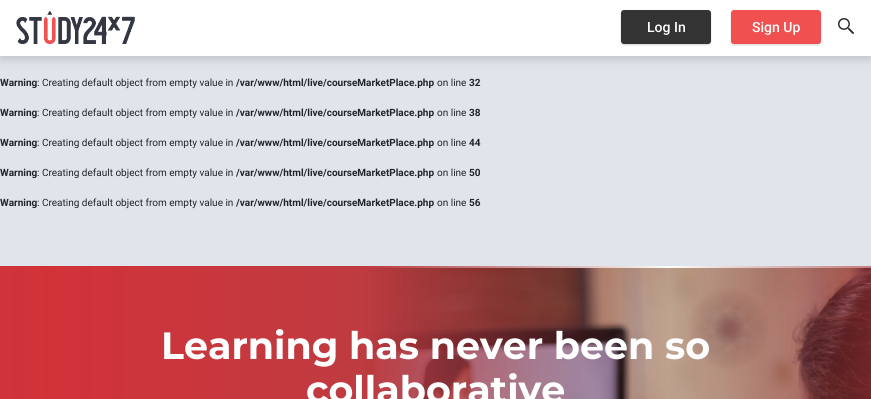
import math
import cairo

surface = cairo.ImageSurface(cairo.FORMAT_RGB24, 871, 399)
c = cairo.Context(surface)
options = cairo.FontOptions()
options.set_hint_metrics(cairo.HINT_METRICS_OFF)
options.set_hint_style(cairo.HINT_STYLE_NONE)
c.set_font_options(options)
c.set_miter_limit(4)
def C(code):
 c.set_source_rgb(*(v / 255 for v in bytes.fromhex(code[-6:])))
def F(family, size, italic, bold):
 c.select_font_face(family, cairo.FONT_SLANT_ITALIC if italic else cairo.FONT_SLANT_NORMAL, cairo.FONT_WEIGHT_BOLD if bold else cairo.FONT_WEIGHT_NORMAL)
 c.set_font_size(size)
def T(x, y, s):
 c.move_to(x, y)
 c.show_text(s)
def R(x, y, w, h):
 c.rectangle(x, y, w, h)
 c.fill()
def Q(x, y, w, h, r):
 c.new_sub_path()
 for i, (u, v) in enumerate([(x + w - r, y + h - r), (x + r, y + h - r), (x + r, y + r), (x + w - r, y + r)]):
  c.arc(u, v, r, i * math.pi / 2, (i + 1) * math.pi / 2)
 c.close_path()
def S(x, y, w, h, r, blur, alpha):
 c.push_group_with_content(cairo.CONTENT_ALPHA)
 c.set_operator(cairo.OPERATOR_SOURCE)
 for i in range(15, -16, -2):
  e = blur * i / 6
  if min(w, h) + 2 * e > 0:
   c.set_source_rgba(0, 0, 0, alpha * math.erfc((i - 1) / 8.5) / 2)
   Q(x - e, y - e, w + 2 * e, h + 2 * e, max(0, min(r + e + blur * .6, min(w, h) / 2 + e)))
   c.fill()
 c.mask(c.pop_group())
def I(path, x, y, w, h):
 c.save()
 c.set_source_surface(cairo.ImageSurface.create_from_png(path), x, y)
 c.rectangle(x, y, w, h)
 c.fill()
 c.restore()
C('dfe5eb')
c.paint()
C('2c2e2f')
S(0,4,871,56,0,4.5,.17)
C('ffffff')
R(0,0,871,56)
I('1.png',16,10,119,34)
C('2c2e2f')
S(621,11,90,34,3,1,.2)
C('333333')
Q(621,10,90,34,3)
c.fill()
F('Roboto Medium',14,0,0)
C('ffffff')
T(647,32,'Log In')
C('2c2e2f')
S(731,11,90,34,3,1,.2)
C('f05050')
Q(731,10,90,34,3)
c.fill()
C('ffffff')
T(752,32,'Sign Up')
I('2.png',838,18,16,16)
F('Roboto',10,0,1)
C('212529')
T(0,86,'Warning')
F('Roboto',10,0,0)
T(37,86,': Creating default object from empty value in')
F('Roboto',10,0,1)
T(236,86,'/var/www/html/live/courseMarketPlace.php')
F('Roboto',10,0,0)
T(437,86,'on line')
F('Roboto',10,0,1)
T(469,86,'32')
T(0,116,'Warning')
F('Roboto',10,0,0)
T(37,116,': Creating default object from empty value in')
F('Roboto',10,0,1)
T(236,116,'/var/www/html/live/courseMarketPlace.php')
F('Roboto',10,0,0)
T(437,116,'on line')
F('Roboto',10,0,1)
T(469,116,'38')
T(0,146,'Warning')
F('Roboto',10,0,0)
T(37,146,': Creating default object from empty value in')
F('Roboto',10,0,1)
T(236,146,'/var/www/html/live/courseMarketPlace.php')
F('Roboto',10,0,0)
T(437,146,'on line')
F('Roboto',10,0,1)
T(469,146,'44')
T(0,176,'Warning')
F('Roboto',10,0,0)
T(37,176,': Creating default object from empty value in')
F('Roboto',10,0,1)
T(236,176,'/var/www/html/live/courseMarketPlace.php')
F('Roboto',10,0,0)
T(437,176,'on line')
F('Roboto',10,0,1)
T(469,176,'50')
T(0,206,'Warning')
F('Roboto',10,0,0)
T(37,206,': Creating default object from empty value in')
F('Roboto',10,0,1)
T(236,206,'/var/www/html/live/courseMarketPlace.php')
F('Roboto',10,0,0)
T(437,206,'on line')
F('Roboto',10,0,1)
T(469,206,'56')
I('3.png',0,266,871,133)
F('Montserrat',38,0,1)
C('ffffff')
T(161,359,'Learning has never been so')
T(306,403,'collaborative')
surface.write_to_png('o.png')
